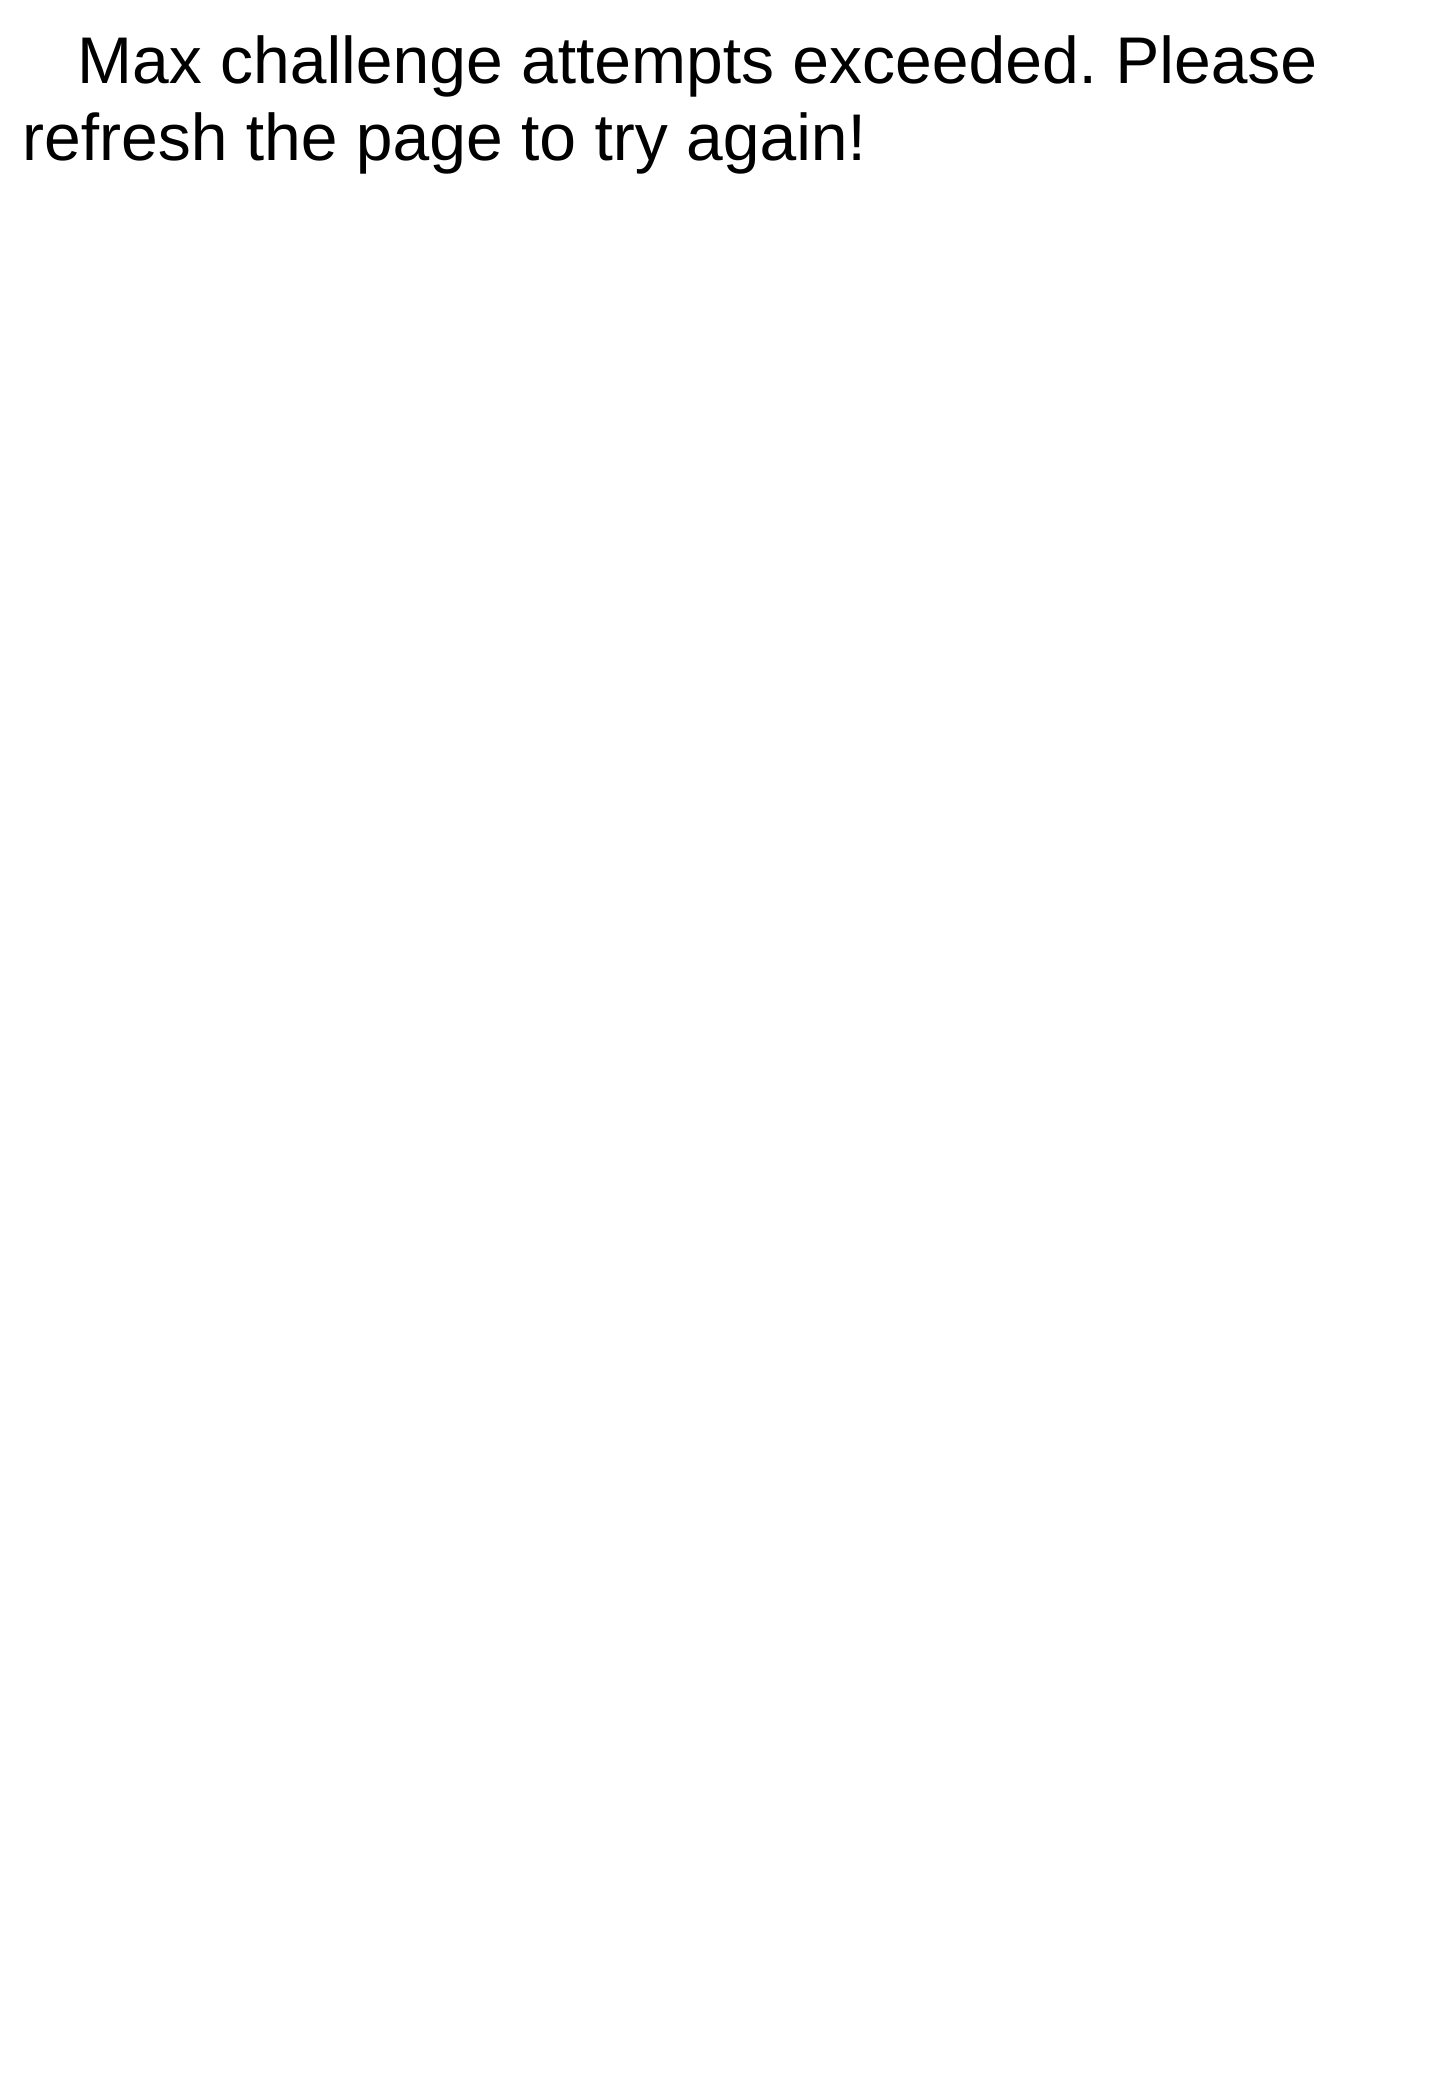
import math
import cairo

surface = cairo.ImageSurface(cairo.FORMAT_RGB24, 1436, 2082)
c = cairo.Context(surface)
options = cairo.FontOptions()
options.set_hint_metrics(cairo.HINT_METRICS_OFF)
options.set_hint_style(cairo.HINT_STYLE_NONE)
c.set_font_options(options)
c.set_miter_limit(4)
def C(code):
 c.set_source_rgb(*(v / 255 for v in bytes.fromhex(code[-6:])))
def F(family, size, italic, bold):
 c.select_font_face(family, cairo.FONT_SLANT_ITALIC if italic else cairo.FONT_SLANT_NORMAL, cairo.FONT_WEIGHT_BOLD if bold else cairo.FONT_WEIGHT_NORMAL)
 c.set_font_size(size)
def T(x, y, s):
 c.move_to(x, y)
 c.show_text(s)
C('ffffff')
c.paint()
F('Liberation Sans',66,0,0)
C('000000')
T(77,83,'Max challenge attempts exceeded. Please')
T(22,160,'refresh the page to try again!')
surface.write_to_png('o.png')
